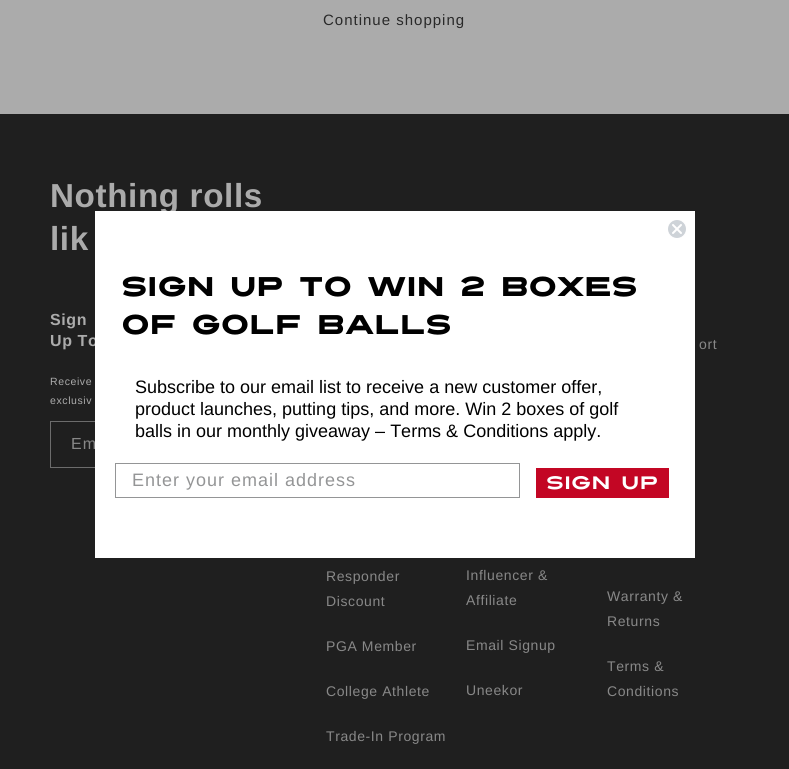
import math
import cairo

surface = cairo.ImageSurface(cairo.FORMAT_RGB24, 789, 769)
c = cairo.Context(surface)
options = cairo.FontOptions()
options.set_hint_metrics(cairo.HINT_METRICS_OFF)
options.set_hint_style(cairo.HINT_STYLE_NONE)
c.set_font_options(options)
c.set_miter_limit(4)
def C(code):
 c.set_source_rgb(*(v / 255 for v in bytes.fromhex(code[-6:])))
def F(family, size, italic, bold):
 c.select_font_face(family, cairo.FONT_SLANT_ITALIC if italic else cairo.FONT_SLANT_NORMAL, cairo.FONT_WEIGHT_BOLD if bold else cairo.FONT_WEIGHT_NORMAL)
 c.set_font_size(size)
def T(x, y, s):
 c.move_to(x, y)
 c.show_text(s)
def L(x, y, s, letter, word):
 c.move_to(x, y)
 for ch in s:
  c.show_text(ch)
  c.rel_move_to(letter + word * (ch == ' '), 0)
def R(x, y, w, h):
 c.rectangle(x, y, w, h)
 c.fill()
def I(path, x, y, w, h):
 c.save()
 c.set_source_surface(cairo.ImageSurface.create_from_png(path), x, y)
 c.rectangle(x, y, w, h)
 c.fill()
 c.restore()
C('ababab')
c.paint()
F('Liberation Sans',15,0,0)
C('292929')
L(323,25,'Continue shopping',1,0)
C('1f1f1f')
R(0,114,789,655)
F('Liberation Sans',33.25,0,1)
C('ababab')
L(50,207,'Nothing rolls',.6,0)
L(50,250,'lik',.6,0)
F('Liberation Sans',16,0,1)
L(50,325,'Sign',.6,0)
L(50,346,'Up To',.6,0)
F('Liberation Sans',10.5,0,0)
L(50,385,'Receive',.6,0)
L(50,404,'exclusiv',.6,0)
c.rectangle(50.5,421.5,275,46)
C('6c6c6c')
c.set_line_width(1)
c.stroke()
F('Liberation Sans',16,0,0)
C('888888')
L(71,449,'Em',1,0)
F('Liberation Sans',14,0,0)
L(326,581,'Responder',.6,0)
L(326,606,'Discount',.6,0)
L(326,651,'PGA Member',.6,0)
L(326,696,'College Athlete',.6,0)
L(326,741,'Trade-In Program',.6,0)
L(466,580,'Influencer &',.6,0)
L(466,605,'Affiliate',.6,0)
L(466,650,'Email Signup',.6,0)
L(466,695,'Uneekor',.6,0)
L(699,349,'ort',.6,0)
L(607,601,'Warranty &',.6,0)
L(607,626,'Returns',.6,0)
L(607,671,'Terms &',.6,0)
L(607,696,'Conditions',.6,0)
C('ffffff')
R(95,211,600,347)
I('1.png',668,220,18,18)
F('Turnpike',26,0,1)
C('000000')
T(121,296,'Sign Up to win 2 boxes')
T(121,334,'of golf balls')
F('Liberation Sans',18,0,0)
T(135,393,'Subscribe to our email list to receive a new customer offer,')
T(135,415,'product launches, putting tips, and more. Win 2 boxes of golf')
T(135,437,'balls in our monthly giveaway – Terms & Conditions apply.')
c.rectangle(115.5,463.5,404,34)
C('949596')
c.stroke()
L(132,486,'Enter your email address',1,0)
C('c30624')
R(536,468,133,30)
F('Turnpike',18,0,0)
C('ffffff')
T(546,489,'SIGN UP')
surface.write_to_png('o.png')
